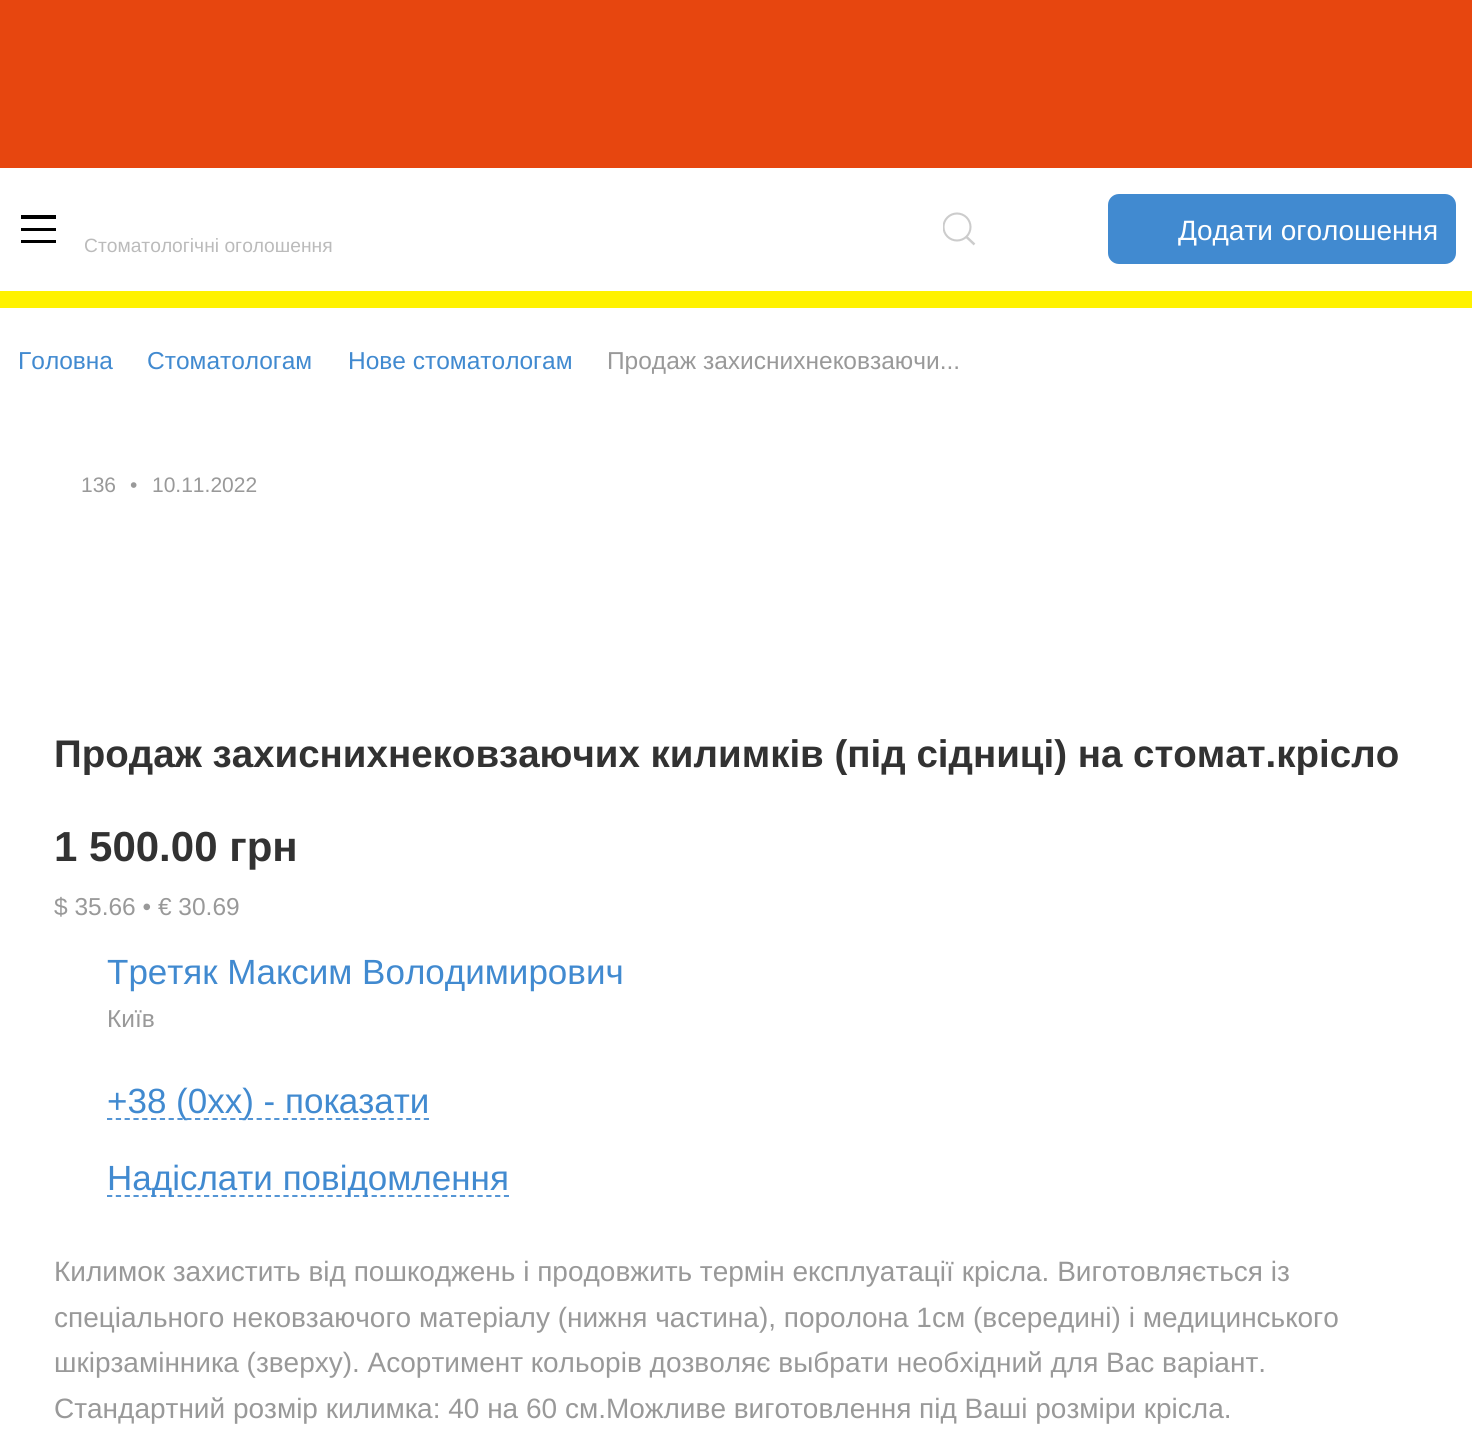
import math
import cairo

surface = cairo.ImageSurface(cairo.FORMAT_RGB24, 1472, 1452)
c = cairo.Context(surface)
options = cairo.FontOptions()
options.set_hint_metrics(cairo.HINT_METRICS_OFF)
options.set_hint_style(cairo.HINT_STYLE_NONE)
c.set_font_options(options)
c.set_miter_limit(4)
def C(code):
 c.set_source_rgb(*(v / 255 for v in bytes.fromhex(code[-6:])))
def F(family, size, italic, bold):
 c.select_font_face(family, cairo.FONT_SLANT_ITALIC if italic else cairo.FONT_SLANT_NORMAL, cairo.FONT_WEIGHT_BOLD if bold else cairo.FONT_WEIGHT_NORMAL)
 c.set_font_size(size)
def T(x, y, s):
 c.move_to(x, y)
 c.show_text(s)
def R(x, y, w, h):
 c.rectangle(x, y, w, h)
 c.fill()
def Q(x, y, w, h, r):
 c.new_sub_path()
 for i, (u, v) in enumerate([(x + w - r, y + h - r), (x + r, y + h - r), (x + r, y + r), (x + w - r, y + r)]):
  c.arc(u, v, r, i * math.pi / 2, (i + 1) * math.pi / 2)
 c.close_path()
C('e7460f')
c.paint()
C('ffffff')
c.set_fill_rule(cairo.FILL_RULE_EVEN_ODD)
c.new_path()
c.move_to(-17,168)
c.line_to(-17,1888)
c.line_to(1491,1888)
c.line_to(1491,168)
c.close_path()
c.move_to(0,177)
c.line_to(0,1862)
c.line_to(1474,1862)
c.line_to(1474,177)
c.close_path()
c.fill()
R(0,177,1472,1275)
C('000000')
R(21,215,35,4)
R(21,228,35,3)
R(21,240,35,3)
F('Liberation Sans',19.25,0,0)
C('bbbbbb')
T(84,252,'Стоматологічні оголошення')
c.save()
c.set_fill_rule(cairo.FILL_RULE_WINDING)
c.rectangle(943,212,34,35)
c.clip()
c.arc(957,227,13.5,0,2 * math.pi)
C('cccccc')
c.set_line_width(2.1)
c.stroke()
c.restore()
c.new_path()
c.move_to(966,236.5)
c.line_to(974.5,244.5)
C('cccccc')
c.set_line_width(2.5)
c.stroke()
C('418ad0')
Q(1108,194,348,70,11)
c.fill()
F('Liberation Sans',28,0,0)
C('ffffff')
T(1178,240,'Додати оголошення')
C('fff200')
R(0,291,1472,17)
F('Liberation Sans',24.5,0,0)
C('418ad0')
T(18,369,'Головна')
T(147,369,'Стоматологам')
T(348,369,'Нове стоматологам')
C('999999')
T(607,369,'Продаж захиснихнековзаючи...')
F('Liberation Sans',21,0,0)
T(81,492,'136')
T(130,492,'•')
T(152,492,'10.11.2022')
F('Liberation Sans',38.5,0,1)
C('323232')
T(54,767,'Продаж захиснихнековзаючих килимків (під сідниці) на стомат.крісло')
F('Liberation Sans',42,0,1)
T(54,861,'1 500.00 грн')
F('Liberation Sans',24.5,0,0)
C('999999')
T(54,915,'$ 35.66 • € 30.69')
F('Liberation Sans',35,0,0)
C('418ad0')
T(107,984,'Третяк Максим Володимирович')
F('Liberation Sans',24.5,0,0)
C('999999')
T(107,1027,'Київ')
c.new_path()
c.move_to(107,1119)
c.line_to(429,1119)
C('418ad0')
c.set_line_width(1.8)
c.set_dash([5.25,3.55])
c.stroke()
F('Liberation Sans',35,0,0)
T(107,1113,'+38 (0xx) - показати')
c.new_path()
c.move_to(107,1196)
c.line_to(509,1196)
c.set_dash([5.25,3.57])
c.stroke()
T(107,1190,'Надіслати повідомлення')
F('Liberation Sans',28,0,0)
C('999999')
T(54,1281,'Килимок захистить від пошкоджень і продовжить термін експлуатації крісла. Виготовляється із')
T(54,1327,'спеціального нековзаючого матеріалу (нижня частина), поролона 1см (всередині) і медицинського')
T(54,1372,'шкірзамінника (зверху). Асортимент кольорів дозволяє выбрати необхідний для Вас варіант.')
T(54,1418,'Стандартний розмір килимка: 40 на 60 см.Можливе виготовлення під Ваші розміри крісла.')
surface.write_to_png('o.png')
